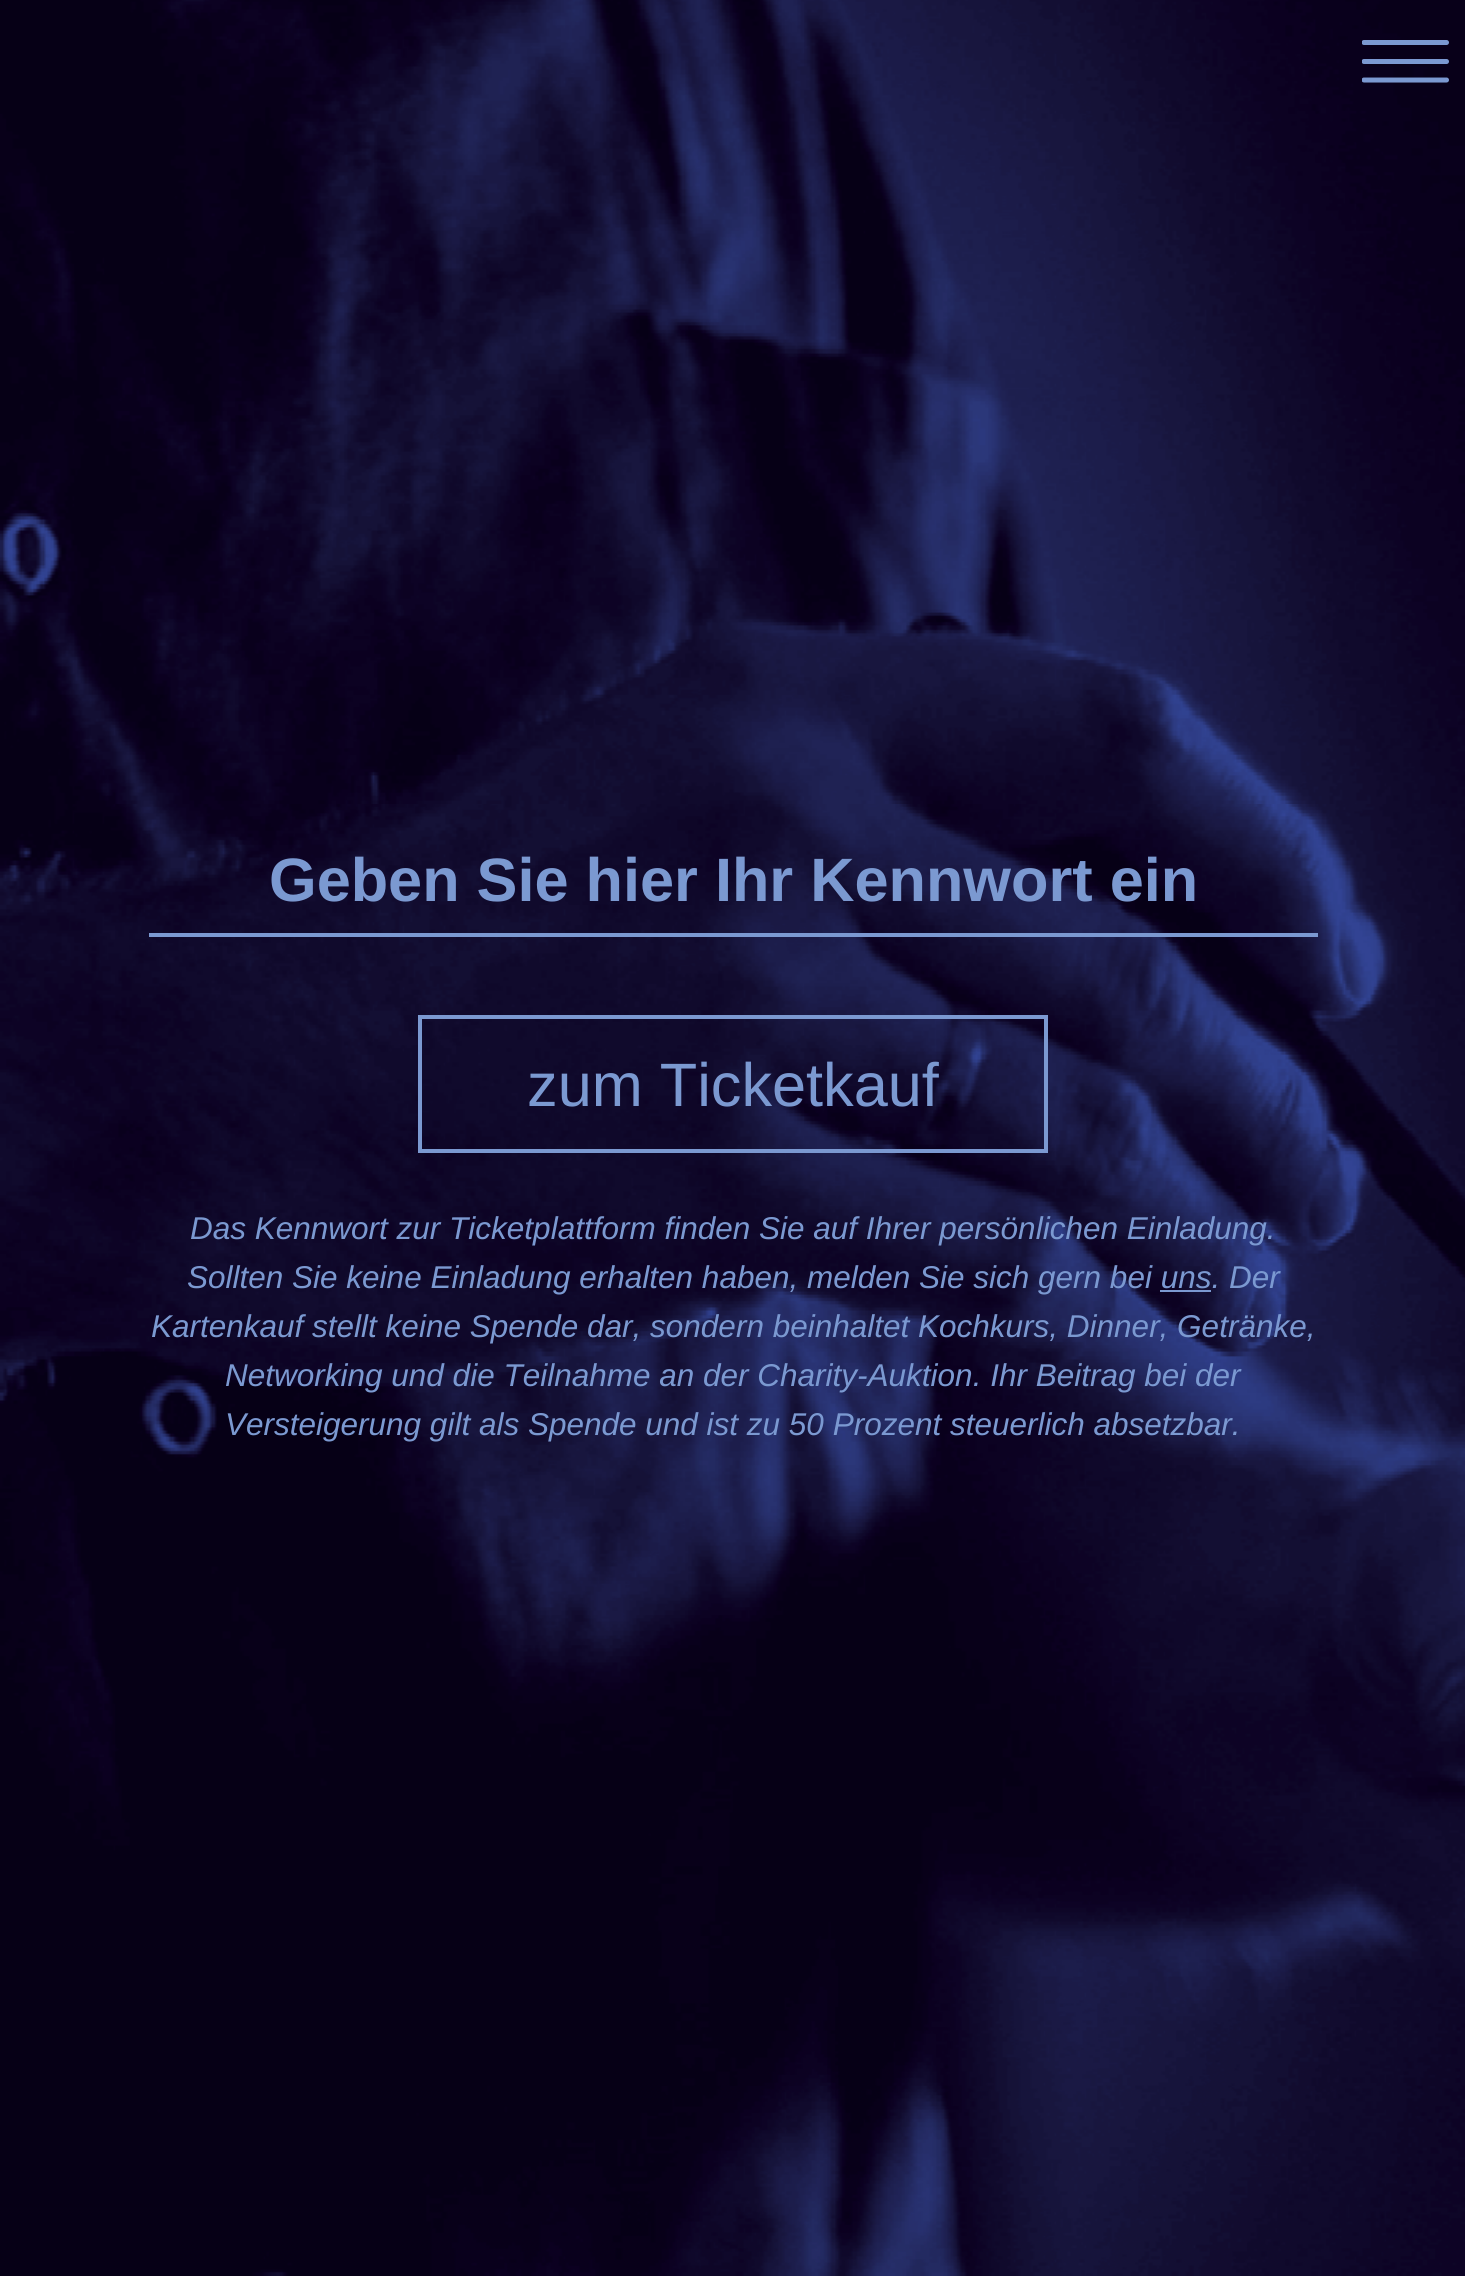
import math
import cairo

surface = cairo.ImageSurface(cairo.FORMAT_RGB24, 1465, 2276)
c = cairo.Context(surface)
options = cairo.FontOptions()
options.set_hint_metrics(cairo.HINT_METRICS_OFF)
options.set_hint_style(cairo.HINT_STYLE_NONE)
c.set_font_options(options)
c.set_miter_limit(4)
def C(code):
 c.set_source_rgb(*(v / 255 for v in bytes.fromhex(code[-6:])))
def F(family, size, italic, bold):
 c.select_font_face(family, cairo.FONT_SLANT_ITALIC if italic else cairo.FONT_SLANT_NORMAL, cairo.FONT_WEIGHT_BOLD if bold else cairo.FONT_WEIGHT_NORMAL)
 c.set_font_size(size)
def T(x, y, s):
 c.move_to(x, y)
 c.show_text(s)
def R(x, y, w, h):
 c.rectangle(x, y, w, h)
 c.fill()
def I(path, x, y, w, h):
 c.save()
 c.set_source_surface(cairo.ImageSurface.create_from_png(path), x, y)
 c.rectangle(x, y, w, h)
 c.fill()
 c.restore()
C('ffffff')
c.paint()
I('1.png',0,0,1465,2276)
c.save()
c.rectangle(1362,18,87,87)
c.clip()
c.new_path()
c.move_to(1364,42.5)
c.line_to(1446.5,42.5)
C('7b99d1')
c.set_line_width(5)
c.set_line_cap(cairo.LINE_CAP_ROUND)
c.stroke()
c.new_path()
c.move_to(1364,61.5)
c.line_to(1446.5,61.5)
c.stroke()
c.new_path()
c.move_to(1364,80)
c.line_to(1446.5,80)
c.stroke()
c.restore()
C('7b99d1')
R(149,933,1169,4)
F('Liberation Sans',61.25,0,1)
T(269,901,'Geben Sie hier Ihr Kennwort ein')
c.rectangle(420,1017,626,134)
c.set_line_width(4)
c.stroke()
F('Liberation Sans',61.25,0,0)
T(527,1106,'zum Ticketkauf')
F('Liberation Sans',31.5,1,0)
T(190,1239,'Das Kennwort zur Ticketplattform finden Sie auf Ihrer persönlichen Einladung.')
T(187,1288,'Sollten Sie keine Einladung erhalten haben, melden Sie sich gern bei uns. Der')
R(1160,1290,51,2)
T(151,1337,'Kartenkauf stellt keine Spende dar, sondern beinhaltet Kochkurs, Dinner, Getränke,')
T(225,1386,'Networking und die Teilnahme an der Charity-Auktion. Ihr Beitrag bei der')
T(225,1435,'Versteigerung gilt als Spende und ist zu 50 Prozent steuerlich absetzbar.')
surface.write_to_png('o.png')
